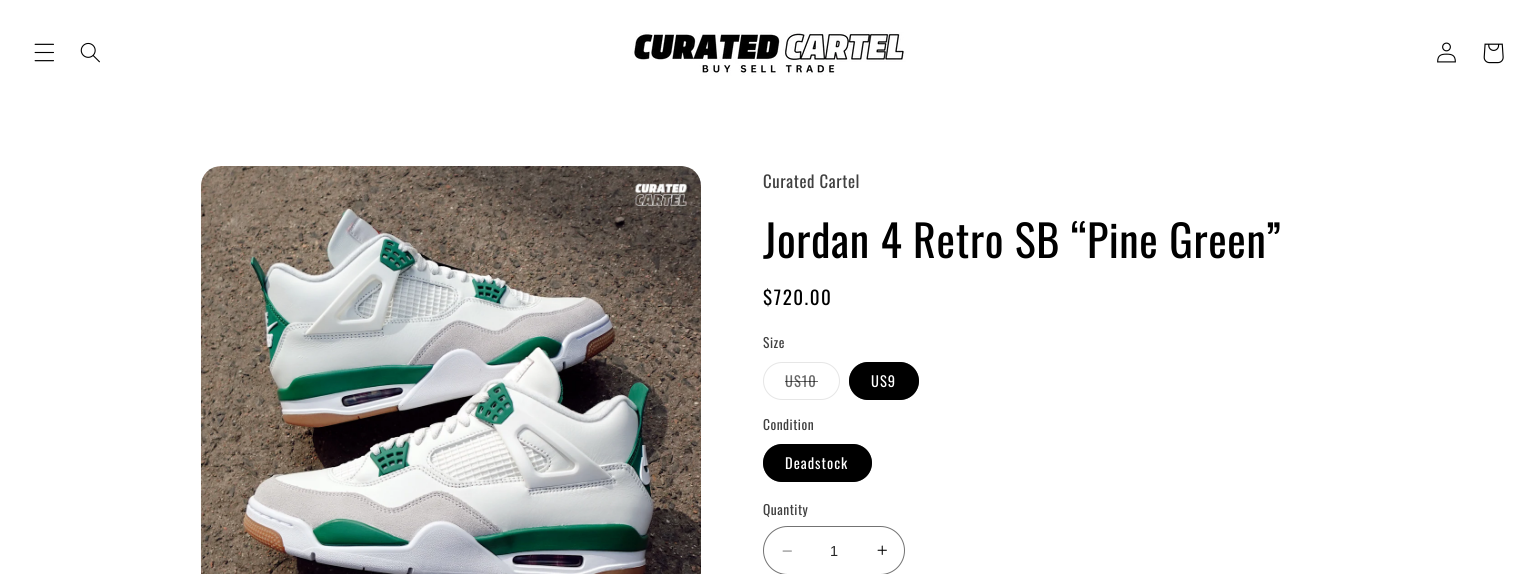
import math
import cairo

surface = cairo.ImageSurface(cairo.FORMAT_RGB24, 1537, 574)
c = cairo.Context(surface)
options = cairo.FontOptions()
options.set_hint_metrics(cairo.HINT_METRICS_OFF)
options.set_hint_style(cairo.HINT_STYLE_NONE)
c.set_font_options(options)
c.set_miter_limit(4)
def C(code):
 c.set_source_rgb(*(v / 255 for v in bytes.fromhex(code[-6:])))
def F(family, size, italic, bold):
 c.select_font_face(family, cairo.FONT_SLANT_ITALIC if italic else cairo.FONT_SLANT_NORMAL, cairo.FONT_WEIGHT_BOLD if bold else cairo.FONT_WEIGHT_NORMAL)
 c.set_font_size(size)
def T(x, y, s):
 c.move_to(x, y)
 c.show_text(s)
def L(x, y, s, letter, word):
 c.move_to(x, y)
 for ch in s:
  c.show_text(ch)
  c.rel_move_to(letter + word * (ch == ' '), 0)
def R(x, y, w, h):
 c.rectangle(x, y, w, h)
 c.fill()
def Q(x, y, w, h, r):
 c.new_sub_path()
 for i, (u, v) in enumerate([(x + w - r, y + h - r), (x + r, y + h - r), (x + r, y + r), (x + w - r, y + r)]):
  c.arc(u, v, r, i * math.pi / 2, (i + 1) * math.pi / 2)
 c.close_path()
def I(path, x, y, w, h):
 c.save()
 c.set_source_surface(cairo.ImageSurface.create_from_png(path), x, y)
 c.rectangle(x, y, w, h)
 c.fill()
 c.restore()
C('ffffff')
c.paint()
I('1.png',34,43,20,19)
I('2.png',80,42,20,21)
I('3.png',632,32,274,44)
I('4.png',1437,42,19,21)
I('5.png',1483,43,21,21)
I('6.png',201,166,500,408)
F('Oswald',16.75,0,0)
C('404040')
L(763,188,'Curated Cartel',.6,0)
F('Oswald',44,0,0)
C('000000')
L(763,258,'Jordan 4 Retro SB “Pine Green”',.65,0)
F('Oswald',19,0,0)
L(763,305,'$720.00',1.5,0)
F('Oswald',13.5,0,0)
C('404040')
L(763,348,'Size',.5,0)
Q(763.5,362.5,76,37,18.5)
C('e6e6e6')
c.set_line_width(1)
c.stroke()
F('Oswald',14.5,0,0)
C('666666')
L(785,387,'US10',1,0)
c.set_source_rgba(0,0,0,0.6)
R(785,381,33,1)
C('000000')
Q(849,362,70,38,19)
c.fill()
Q(849.5,362.5,69,37,18.5)
c.set_source_rgba(0,0,0,0.55)
c.stroke()
C('ffffff')
L(871,387,'US9',1,0)
F('Oswald',13.5,0,0)
C('404040')
L(763,430,'Condition',.5,0)
C('000000')
Q(763,444,109,38,19)
c.fill()
Q(763.5,444.5,108,37,18.5)
c.set_source_rgba(0,0,0,0.55)
c.stroke()
F('Oswald',14.5,0,0)
C('ffffff')
L(785,469,'Deadstock',1,0)
F('Oswald',13.5,0,0)
C('404040')
L(763,515,'Quantity',.5,0)
I('7.png',782,550,10,2)
I('8.png',877,545,10,10)
Q(763.5,526.5,141,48,24)
C('737373')
c.stroke()
F('Liberation Sans',14.5,0,0)
C('262626')
T(830,556,'1')
surface.write_to_png('o.png')
